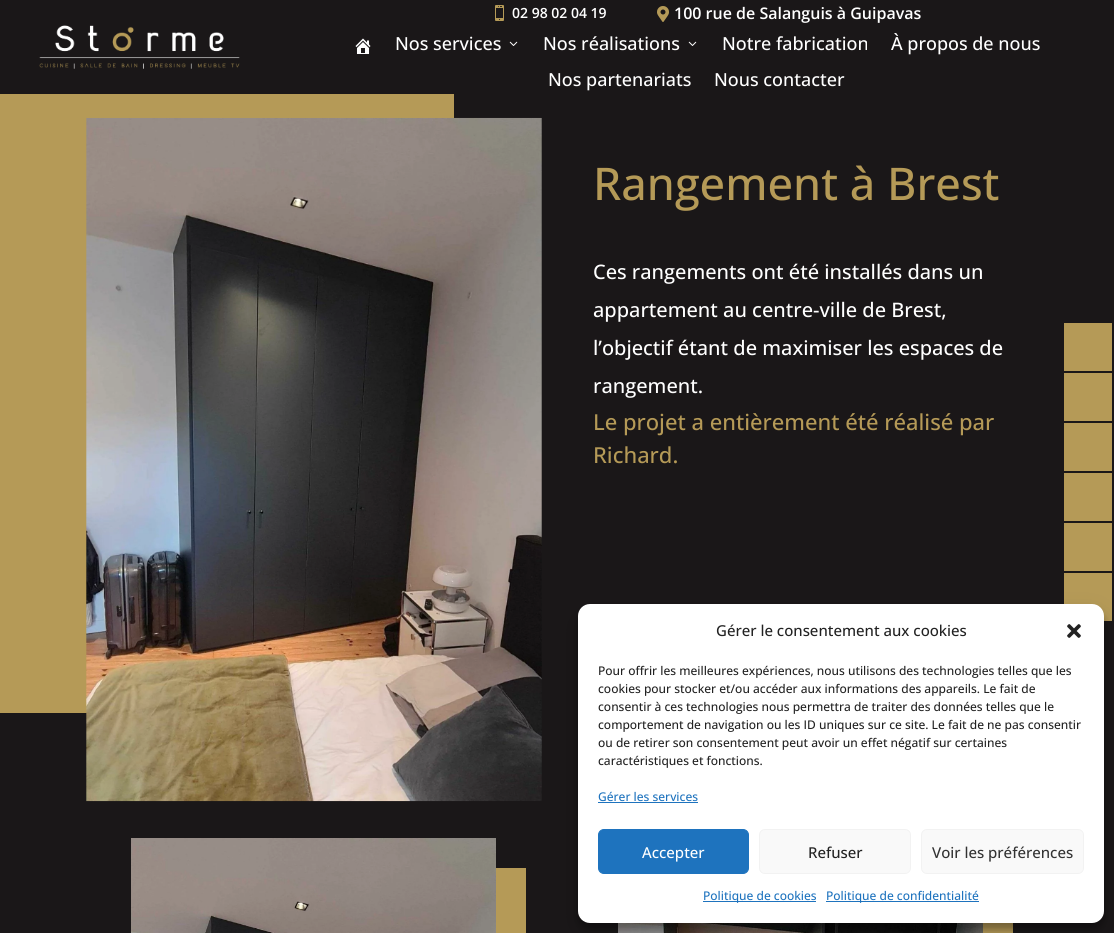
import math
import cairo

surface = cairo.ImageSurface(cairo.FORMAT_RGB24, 1114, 933)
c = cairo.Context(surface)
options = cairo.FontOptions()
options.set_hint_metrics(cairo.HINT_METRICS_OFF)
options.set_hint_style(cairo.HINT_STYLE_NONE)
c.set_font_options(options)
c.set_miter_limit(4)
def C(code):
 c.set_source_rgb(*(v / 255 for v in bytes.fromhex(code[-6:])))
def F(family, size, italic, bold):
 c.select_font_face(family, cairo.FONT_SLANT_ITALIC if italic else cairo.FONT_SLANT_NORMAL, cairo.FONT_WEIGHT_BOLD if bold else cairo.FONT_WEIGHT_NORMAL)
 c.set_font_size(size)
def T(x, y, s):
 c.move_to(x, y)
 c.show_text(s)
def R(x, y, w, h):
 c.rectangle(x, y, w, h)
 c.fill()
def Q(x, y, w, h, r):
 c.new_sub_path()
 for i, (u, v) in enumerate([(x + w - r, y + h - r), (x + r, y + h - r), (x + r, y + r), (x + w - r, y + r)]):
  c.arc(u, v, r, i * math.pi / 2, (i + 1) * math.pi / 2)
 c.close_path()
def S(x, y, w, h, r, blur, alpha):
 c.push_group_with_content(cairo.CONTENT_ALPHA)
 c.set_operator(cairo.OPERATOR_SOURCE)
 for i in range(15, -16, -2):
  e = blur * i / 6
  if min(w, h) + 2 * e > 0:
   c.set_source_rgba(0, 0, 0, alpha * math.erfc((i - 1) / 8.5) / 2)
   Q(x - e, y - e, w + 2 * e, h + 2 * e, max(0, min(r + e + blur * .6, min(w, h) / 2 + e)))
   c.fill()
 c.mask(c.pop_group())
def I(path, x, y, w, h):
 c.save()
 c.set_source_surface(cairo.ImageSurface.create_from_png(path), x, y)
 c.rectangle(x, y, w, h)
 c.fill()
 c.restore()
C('1a1718')
c.paint()
C('b59a57')
c.new_path()
c.move_to(-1,30)
c.line_to(-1,713)
c.line_to(87,713)
c.line_to(87,118)
c.line_to(454,118)
c.line_to(454,30)
c.close_path()
c.fill()
C('1a1718')
R(0,30,454,64)
I('1.png',39,25,201,44)
I('2.png',495,5,9,16)
F('Open Sans SemiBold',14,0,0)
C('ffffff')
T(512,18,'02 98 02 04 19')
I('3.png',657,6,12,16)
F('Open Sans SemiBold',16,0,0)
T(674,19,'100 rue de Salanguis à Guipavas')
I('4.png',355,38,16,16)
F('Open Sans Medium',18,0,0)
T(395,50,'Nos services')
I('5.png',509,41,9,5)
T(543,50,'Nos réalisations')
I('5.png',688,41,9,5)
T(722,50,'Notre fabrication')
T(891,50,'À propos de nous')
T(548,86,'Nos partenariats')
T(714,86,'Nous contacter')
I('6.png',86,117,456,685)
F('Open Sans Medium',45,0,0)
C('b59a57')
T(593,200,'Rangement à Brest')
F('Open Sans Medium',20,0,0)
C('ffffff')
T(593,279,'Ces rangements ont été installés dans un')
T(593,317,'appartement au centre-ville de Brest,')
T(593,355,'l’objectif étant de maximiser les espaces de')
T(593,393,'rangement.')
F('Open Sans Medium',22,0,0)
C('b59a57')
T(593,430,'Le projet a entièrement été réalisé par')
T(593,463,'Richard.')
c.new_path()
c.move_to(161,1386)
c.line_to(161,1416)
c.line_to(526,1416)
c.line_to(526,868)
c.line_to(496,868)
c.line_to(496,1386)
c.close_path()
c.fill()
I('7.png',131,838,365,95)
c.new_path()
c.move_to(648,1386)
c.line_to(648,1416)
c.line_to(1013,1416)
c.line_to(1013,868)
c.line_to(983,868)
c.line_to(983,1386)
c.close_path()
c.fill()
I('8.png',618,923,365,10)
R(1064,323,48,48)
R(1064,373,48,48)
R(1064,423,48,48)
R(1064,473,48,48)
R(1064,523,48,48)
R(1064,573,48,48)
C('000000')
S(578,610,526,319,12,3,.23)
S(578,614,526,319,12,10,.19)
C('ffffff')
Q(578,604,526,319,12)
c.fill()
F('Open Sans Medium',15,0,0)
C('222222')
T(716,636,'Gérer le consentement aux cookies')
I('9.png',1067,624,14,14)
F('Open Sans Medium',12,0,0)
T(598,675,'Pour offrir les meilleures expériences, nous utilisons des technologies telles que les')
T(598,693,'cookies pour stocker et/ou accéder aux informations des appareils. Le fait de')
T(598,711,'consentir à ces technologies nous permettra de traiter des données telles que le')
T(598,729,'comportement de navigation ou les ID uniques sur ce site. Le fait de ne pas consentir')
T(598,747,'ou de retirer son consentement peut avoir un effet négatif sur certaines')
T(598,765,'caractéristiques et fonctions.')
C('1e73be')
T(598,801,'Gérer les services')
R(598,802,100,1)
Q(598.5,829.5,150,44,5.5)
c.fill_preserve()
c.set_line_width(1)
c.stroke()
F('Open Sans Medium',15,0,0)
C('ffffff')
T(642,858,'Accepter')
C('f9f9f9')
Q(759.5,829.5,151,44,5.5)
c.fill_preserve()
C('f2f2f2')
c.stroke()
C('222222')
T(808,858,'Refuser')
C('f9f9f9')
Q(921.5,829.5,162,44,5.5)
c.fill_preserve()
C('f2f2f2')
c.stroke()
C('333333')
T(932,858,'Voir les préférences')
C('1e73be')
R(703,901,113,1)
F('Open Sans Medium',12,0,0)
T(703,900,'Politique de cookies')
R(826,901,153,1)
T(826,900,'Politique de confidentialité')
surface.write_to_png('o.png')
